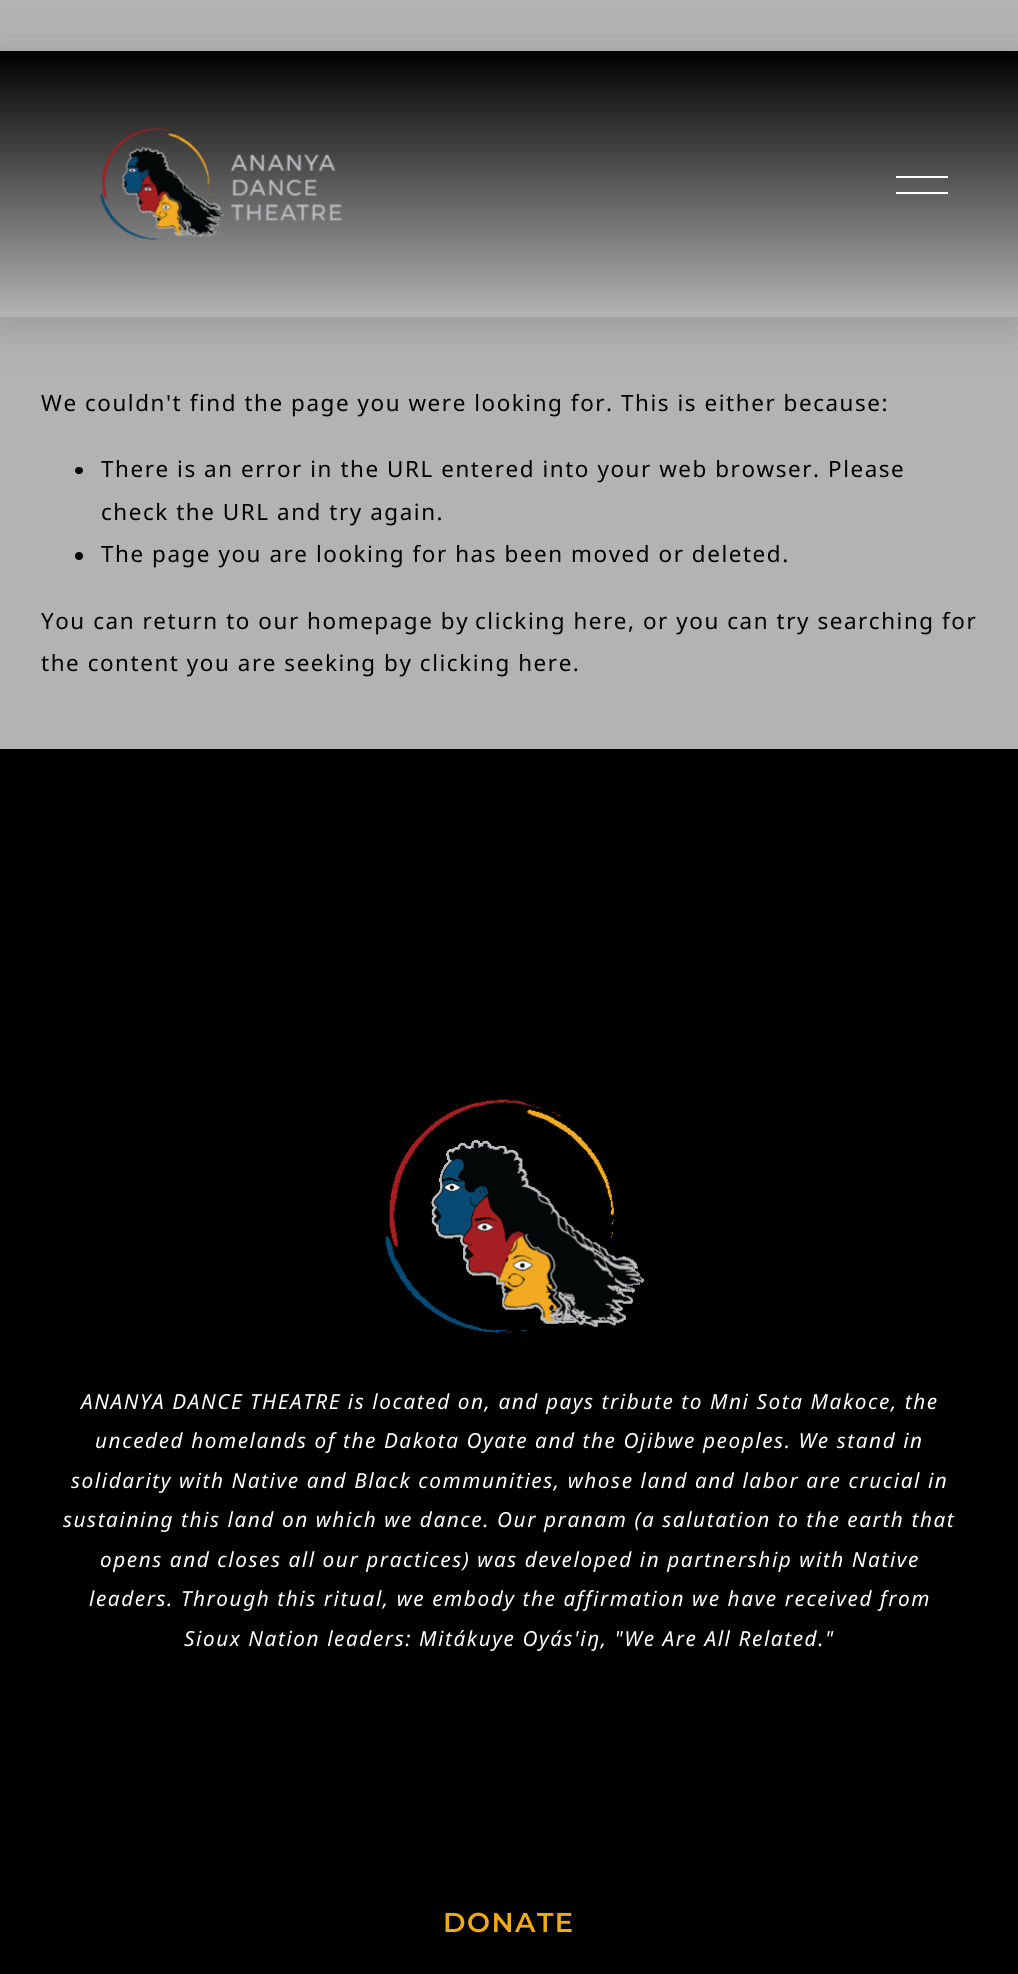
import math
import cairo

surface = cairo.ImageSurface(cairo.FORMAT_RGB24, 1018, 1974)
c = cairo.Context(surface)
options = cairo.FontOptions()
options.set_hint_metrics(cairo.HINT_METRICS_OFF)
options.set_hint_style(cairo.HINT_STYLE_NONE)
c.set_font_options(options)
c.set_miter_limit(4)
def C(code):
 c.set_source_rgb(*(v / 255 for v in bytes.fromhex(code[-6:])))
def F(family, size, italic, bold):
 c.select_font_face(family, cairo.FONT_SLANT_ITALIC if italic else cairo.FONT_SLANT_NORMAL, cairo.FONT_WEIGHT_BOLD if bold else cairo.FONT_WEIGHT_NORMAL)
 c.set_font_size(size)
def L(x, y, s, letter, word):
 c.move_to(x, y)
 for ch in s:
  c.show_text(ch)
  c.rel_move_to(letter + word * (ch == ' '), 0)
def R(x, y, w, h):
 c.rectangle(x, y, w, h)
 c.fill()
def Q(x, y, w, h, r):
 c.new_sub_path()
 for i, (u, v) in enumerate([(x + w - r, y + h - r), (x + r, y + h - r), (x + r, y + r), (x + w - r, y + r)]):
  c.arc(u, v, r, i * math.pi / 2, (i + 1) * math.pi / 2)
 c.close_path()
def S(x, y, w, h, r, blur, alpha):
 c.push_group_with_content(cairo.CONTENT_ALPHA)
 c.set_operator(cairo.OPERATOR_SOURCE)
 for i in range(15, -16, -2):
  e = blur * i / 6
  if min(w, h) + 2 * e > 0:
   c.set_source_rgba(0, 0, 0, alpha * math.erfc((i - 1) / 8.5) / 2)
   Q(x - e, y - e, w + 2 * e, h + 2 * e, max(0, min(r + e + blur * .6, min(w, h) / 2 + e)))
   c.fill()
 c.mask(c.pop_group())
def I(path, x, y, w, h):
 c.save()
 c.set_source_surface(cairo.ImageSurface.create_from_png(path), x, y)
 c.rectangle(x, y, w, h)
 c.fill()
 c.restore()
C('b3b3b3')
c.paint()
c.save()
c.set_fill_rule(cairo.FILL_RULE_EVEN_ODD)
c.new_path()
c.move_to(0,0)
c.line_to(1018,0)
c.line_to(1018,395)
c.line_to(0,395)
c.close_path()
c.move_to(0,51)
c.line_to(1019,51)
c.line_to(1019,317)
c.line_to(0,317)
c.close_path()
c.clip()
C('989898')
S(0,60,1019,266,0,22.5,1)
c.restore()
gradient = cairo.LinearGradient(509,51,509,317)
gradient.add_color_stop_rgba(0,0,0,0,1)
gradient.add_color_stop_rgba(1,0,0,0,0)
c.set_source(gradient)
R(0,51,1018,260)
I('1.png',99,128,243,113)
C('ffffff')
R(896,176,52,2)
R(896,192,52,2)
F('Noto Sans',22.4,0,0)
C('000000')
L(41,411,'We couldn\'t find the page you were looking for. This is either because:',1.57,0)
Q(75,467,8,7,3.5)
c.fill()
L(101,477,'There is an error in the URL entered into your web browser. Please',1.57,0)
L(101,520,'check the URL and try again.',1.57,0)
c.new_path()
c.arc(79,556,4,0,2 * math.pi)
c.fill()
L(101,562,'The page you are looking for has been moved or deleted.',1.57,0)
L(41,629,'You can return to our homepage by',1.57,0)
L(475,629,'clicking here, or you can try searching for',1.57,0)
L(41,671,'the content you are seeking by clicking here.',1.57,0)
R(0,749,1018,1225)
I('2.png',385,1099,259,234)
F('Noto Sans',20.75,1,0)
C('ffffff')
L(81,1409,'ANANYA DANCE THEATRE is located on, and pays tribute to Mni Sota Makoce, the',1.57,0)
L(95,1448,'unceded homelands of the Dakota Oyate and the Ojibwe peoples. We stand in',1.57,0)
L(71,1488,'solidarity with Native and Black communities, whose land and labor are crucial in',1.57,0)
L(63,1527,'sustaining this land on which we dance. Our pranam (a salutation to the earth that',1.57,0)
L(100,1567,'opens and closes all our practices) was developed in partnership with Native',1.57,0)
L(89,1606,'leaders. Through this ritual, we embody the affirmation we have received from',1.57,0)
L(184,1646,'Sioux Nation leaders: Mitákuye Oyás\'iŋ, "We Are All Related."',1.57,0)
F('Montserrat SemiBold',27.25,0,0)
C('efaa12')
L(443,1932,'DONATE',1.5,0)
surface.write_to_png('o.png')
